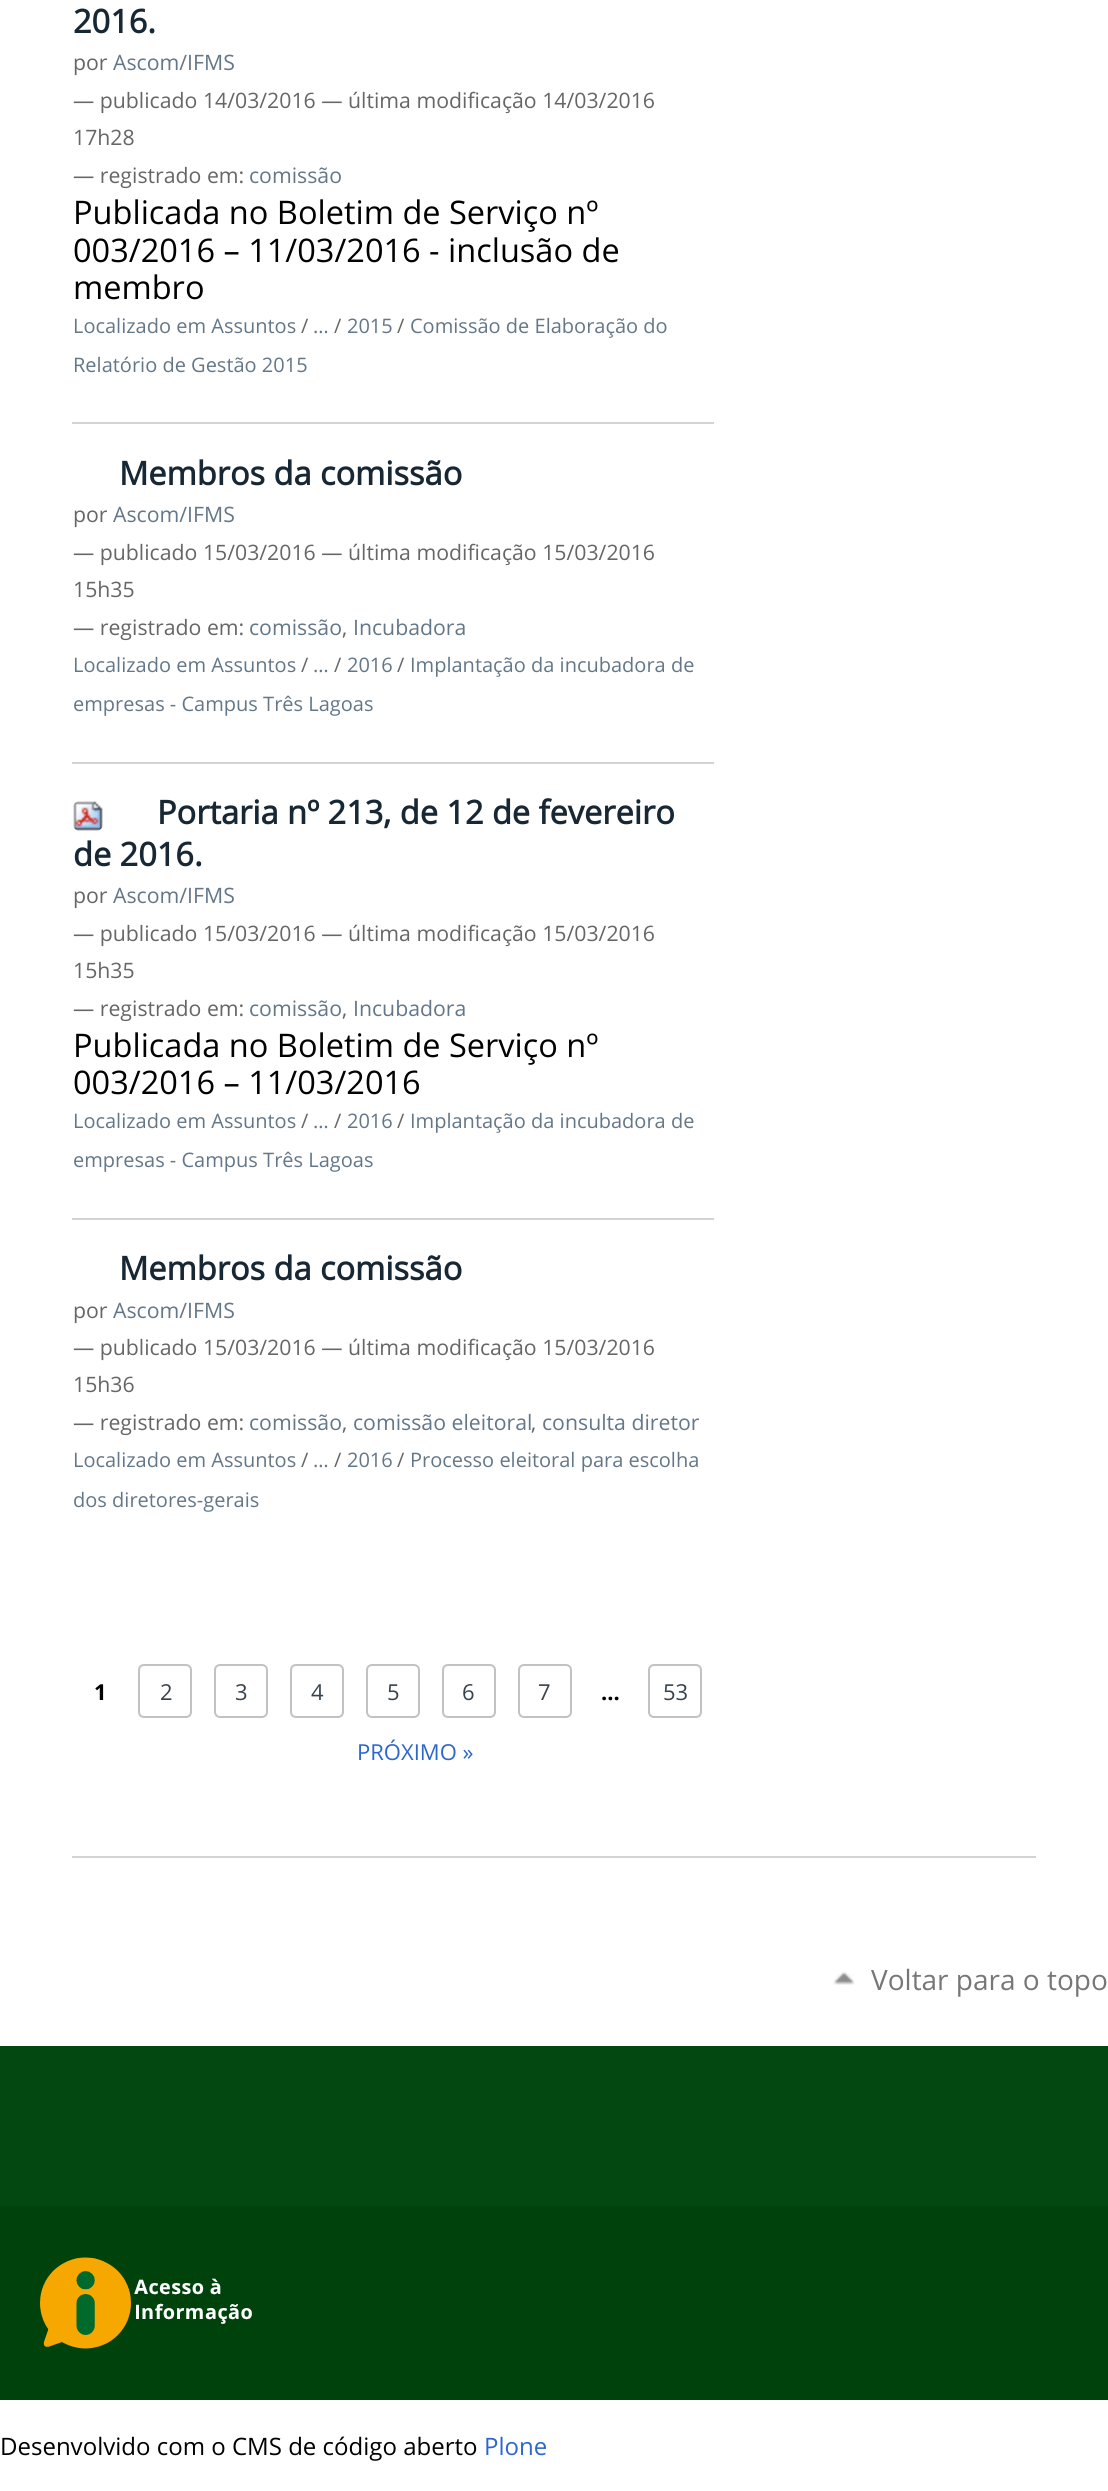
import math
import cairo

surface = cairo.ImageSurface(cairo.FORMAT_RGB24, 1108, 2491)
c = cairo.Context(surface)
options = cairo.FontOptions()
options.set_hint_metrics(cairo.HINT_METRICS_OFF)
options.set_hint_style(cairo.HINT_STYLE_NONE)
c.set_font_options(options)
c.set_miter_limit(4)
def C(code):
 c.set_source_rgb(*(v / 255 for v in bytes.fromhex(code[-6:])))
def F(family, size, italic, bold):
 c.select_font_face(family, cairo.FONT_SLANT_ITALIC if italic else cairo.FONT_SLANT_NORMAL, cairo.FONT_WEIGHT_BOLD if bold else cairo.FONT_WEIGHT_NORMAL)
 c.set_font_size(size)
def T(x, y, s):
 c.move_to(x, y)
 c.show_text(s)
def R(x, y, w, h):
 c.rectangle(x, y, w, h)
 c.fill()
def Q(x, y, w, h, r):
 c.new_sub_path()
 for i, (u, v) in enumerate([(x + w - r, y + h - r), (x + r, y + h - r), (x + r, y + r), (x + w - r, y + r)]):
  c.arc(u, v, r, i * math.pi / 2, (i + 1) * math.pi / 2)
 c.close_path()
def I(path, x, y, w, h):
 c.save()
 c.set_source_surface(cairo.ImageSurface.create_from_png(path), x, y)
 c.rectangle(x, y, w, h)
 c.fill()
 c.restore()
C('ffffff')
c.paint()
C('d3d3d3')
R(72,1856,964,2)
F('Open Sans',32.5,0,1)
C('172734')
T(73,33,'2016.')
F('Open Sans',21.25,0,0)
C('666666')
T(73,70,'por')
C('647788')
T(113,70,'Ascom/IFMS')
C('666666')
T(73,108,'— publicado 14/03/2016 — última modificação 14/03/2016')
T(73,145,'17h28')
T(73,183,'— registrado em:')
C('647788')
T(249,183,'comissão')
F('Open Sans',32.5,0,0)
C('000000')
T(73,224,'Publicada no Boletim de Serviço nº')
T(73,262,'003/2016 – 11/03/2016 - inclusão de')
T(73,299,'membro')
F('Open Sans',20,0,0)
C('647788')
T(73,333,'Localizado em Assuntos')
C('666666')
T(301,333,'/')
C('647788')
T(313,333,'…')
C('666666')
T(334,333,'/')
C('647788')
T(347,333,'2015')
C('666666')
T(397,333,'/')
C('647788')
T(410,333,'Comissão de Elaboração do')
T(73,372,'Relatório de Gestão 2015')
C('d3d3d3')
R(72,422,642,2)
F('Open Sans',32.5,0,1)
C('172734')
T(119,485,'Membros da comissão')
F('Open Sans',21.25,0,0)
C('666666')
T(73,522,'por')
C('647788')
T(113,522,'Ascom/IFMS')
C('666666')
T(73,560,'— publicado 15/03/2016 — última modificação 15/03/2016')
T(73,597,'15h35')
T(73,635,'— registrado em:')
C('647788')
T(249,635,'comissão')
C('666666')
T(342,635,',')
C('647788')
T(353,635,'Incubadora')
F('Open Sans',20,0,0)
T(73,672,'Localizado em Assuntos')
C('666666')
T(301,672,'/')
C('647788')
T(313,672,'…')
C('666666')
T(334,672,'/')
C('647788')
T(347,672,'2016')
C('666666')
T(397,672,'/')
C('647788')
T(410,672,'Implantação da incubadora de')
T(73,711,'empresas - Campus Três Lagoas')
C('d3d3d3')
R(72,762,642,2)
I('1.png',73,801,30,30)
F('Open Sans',32.5,0,1)
C('172734')
T(157,824,'Portaria nº 213, de 12 de fevereiro')
T(73,866,'de 2016.')
F('Open Sans',21.25,0,0)
C('666666')
T(73,903,'por')
C('647788')
T(113,903,'Ascom/IFMS')
C('666666')
T(73,941,'— publicado 15/03/2016 — última modificação 15/03/2016')
T(73,978,'15h35')
T(73,1016,'— registrado em:')
C('647788')
T(249,1016,'comissão')
C('666666')
T(342,1016,',')
C('647788')
T(353,1016,'Incubadora')
F('Open Sans',32.5,0,0)
C('000000')
T(73,1057,'Publicada no Boletim de Serviço nº')
T(73,1094,'003/2016 – 11/03/2016')
F('Open Sans',20,0,0)
C('647788')
T(73,1128,'Localizado em Assuntos')
C('666666')
T(301,1128,'/')
C('647788')
T(313,1128,'…')
C('666666')
T(334,1128,'/')
C('647788')
T(347,1128,'2016')
C('666666')
T(397,1128,'/')
C('647788')
T(410,1128,'Implantação da incubadora de')
T(73,1167,'empresas - Campus Três Lagoas')
C('d3d3d3')
R(72,1218,642,2)
F('Open Sans',32.5,0,1)
C('172734')
T(119,1280,'Membros da comissão')
F('Open Sans',21.25,0,0)
C('666666')
T(73,1318,'por')
C('647788')
T(113,1318,'Ascom/IFMS')
C('666666')
T(73,1355,'— publicado 15/03/2016 — última modificação 15/03/2016')
T(73,1392,'15h36')
T(73,1430,'— registrado em:')
C('647788')
T(249,1430,'comissão')
C('666666')
T(342,1430,',')
C('647788')
T(353,1430,'comissão eleitoral')
C('666666')
T(531,1430,',')
C('647788')
T(542,1430,'consulta diretor')
F('Open Sans',20,0,0)
T(73,1467,'Localizado em Assuntos')
C('666666')
T(301,1467,'/')
C('647788')
T(313,1467,'…')
C('666666')
T(334,1467,'/')
C('647788')
T(347,1467,'2016')
C('666666')
T(397,1467,'/')
C('647788')
T(410,1467,'Processo eleitoral para escolha')
T(73,1507,'dos diretores-gerais')
F('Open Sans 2',22,0,1)
C('000000')
T(94,1700,'1')
Q(139,1665,52,52,5)
C('c2c2c2')
c.stroke()
F('Open Sans',22,0,0)
C('36424d')
T(160,1700,'2')
Q(215,1665,52,52,5)
C('c2c2c2')
c.stroke()
C('36424d')
T(235,1700,'3')
Q(291,1665,52,52,5)
C('c2c2c2')
c.stroke()
C('36424d')
T(311,1700,'4')
Q(367,1665,52,52,5)
C('c2c2c2')
c.stroke()
C('36424d')
T(387,1700,'5')
Q(443,1665,52,52,5)
C('c2c2c2')
c.stroke()
C('36424d')
T(462,1700,'6')
Q(519,1665,52,52,5)
C('c2c2c2')
c.stroke()
C('36424d')
T(538,1700,'7')
F('Open Sans 2',22,0,1)
C('000000')
T(601,1700,'...')
Q(649,1665,52,52,5)
C('c2c2c2')
c.stroke()
F('Open Sans',22,0,0)
C('36424d')
T(663,1700,'53')
C('2c67cd')
T(357,1760,'PRÓXIMO »')
I('2.png',833,1971,22,14)
F('Open Sans',28,0,0)
C('777777')
T(871,1990,'Voltar para o topo')
C('034811')
R(0,2046,1108,160)
C('00420c')
R(0,2206,1108,194)
I('3.png',40,2257,212,92)
F('Open Sans',24,0,0)
C('000000')
T(0,2455,'Desenvolvido com o CMS de código aberto')
C('2c67cd')
T(484,2455,'Plone')
surface.write_to_png('o.png')
